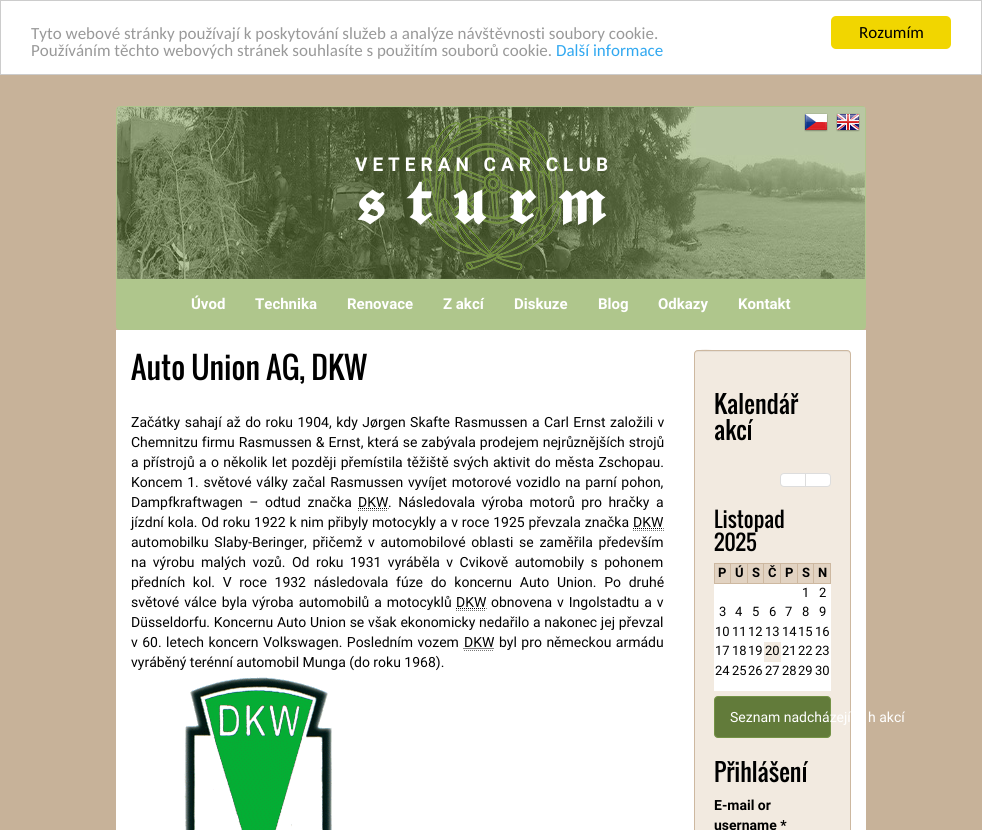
import math
import cairo

surface = cairo.ImageSurface(cairo.FORMAT_RGB24, 982, 830)
c = cairo.Context(surface)
options = cairo.FontOptions()
options.set_hint_metrics(cairo.HINT_METRICS_OFF)
options.set_hint_style(cairo.HINT_STYLE_NONE)
c.set_font_options(options)
c.set_miter_limit(4)
def C(code):
 c.set_source_rgb(*(v / 255 for v in bytes.fromhex(code[-6:])))
def F(family, size, italic, bold):
 c.select_font_face(family, cairo.FONT_SLANT_ITALIC if italic else cairo.FONT_SLANT_NORMAL, cairo.FONT_WEIGHT_BOLD if bold else cairo.FONT_WEIGHT_NORMAL)
 c.set_font_size(size)
def T(x, y, s):
 c.move_to(x, y)
 c.show_text(s)
def L(x, y, s, letter, word):
 c.move_to(x, y)
 for ch in s:
  c.show_text(ch)
  c.rel_move_to(letter + word * (ch == ' '), 0)
def R(x, y, w, h):
 c.rectangle(x, y, w, h)
 c.fill()
def Q(x, y, w, h, r):
 c.new_sub_path()
 for i, (u, v) in enumerate([(x + w - r, y + h - r), (x + r, y + h - r), (x + r, y + r), (x + w - r, y + r)]):
  c.arc(u, v, r, i * math.pi / 2, (i + 1) * math.pi / 2)
 c.close_path()
def I(path, x, y, w, h):
 c.save()
 c.set_source_surface(cairo.ImageSurface.create_from_png(path), x, y)
 c.rectangle(x, y, w, h)
 c.fill()
 c.restore()
C('c7b299')
c.paint()
C('ffffff')
c.rectangle(.5,.5,981,74)
c.fill_preserve()
C('cccccc')
c.set_line_width(1)
c.stroke()
F('Carlito',17,0,0)
C('999999')
T(31,39,'Tyto webové stránky používají k poskytování služeb a analýze návštěvnosti soubory cookie.')
T(31,56,'Používáním těchto webových stránek souhlasíte s použitím souborů cookie.')
C('31a8f0')
T(556,56,'Další informace')
C('f1d600')
Q(831,16,120,33,5)
c.fill()
C('000000')
T(859,38,'Rozumím')
Q(116.5,106.5,749,223,3.5)
C('afc68c')
c.stroke()
I('1.png',117,107,748,172)
I('2.png',804,113,24,19)
I('3.png',836,113,24,19)
I('4.png',419,116,145,154)
F('Roboto',19,0,1)
C('ffffff')
L(355,171,'VETERAN CAR CLUB',5,0)
F('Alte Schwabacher',65,0,1)
L(357,224,'sturm',24,0)
C('afc68c')
R(117,279,748,50)
F('Roboto',15,0,1)
C('ffffff')
T(191,309,'Úvod')
T(255,309,'Technika')
T(347,309,'Renovace')
T(443,309,'Z akcí')
T(514,309,'Diskuze')
T(598,309,'Blog')
T(658,309,'Odkazy')
T(738,309,'Kontakt')
R(116,330,750,500)
F('Oswald',30,0,0)
C('000000')
T(131,380,'Auto Union AG, DKW')
F('Roboto',14,0,0)
L(131,427,'Začátky sahají až do roku 1904, kdy Jørgen Skafte Rasmussen a Carl Ernst založili v',0,1)
L(131,447,'Chemnitzu firmu Rasmussen & Ernst, která se zabývala prodejem nejrůznějších strojů',0,.5)
L(131,467,'a přístrojů a o několik let později přemístila těžiště svých aktivit do města Zschopau.',0,.9)
L(131,487,'Koncem 1. světové války začal Rasmussen vyvíjet motorové vozidlo na parní pohon,',0,1.25)
L(131,507,'Dampfkraftwagen – odtud značka',0,3)
T(358,507,'DKW')
c.new_path()
c.move_to(358,510.5)
c.line_to(388,510.5)
C('777777')
c.set_dash([1,1])
c.stroke()
c.new_path()
c.move_to(358,508.5)
c.line_to(388.5,508.5)
C('000000')
c.stroke()
L(388,507,'. Následovala výroba motorů pro hračky a',0,3)
L(131,527,'jízdní kola. Od roku 1922 k nim přibyly motocykly a v roce 1925 převzala značka',0,.4)
T(633,527,'DKW')
c.new_path()
c.move_to(633,530.5)
c.line_to(664,530.5)
C('777777')
c.stroke()
c.new_path()
c.move_to(633,528.5)
c.line_to(663.5,528.5)
C('000000')
c.stroke()
L(131,547,'automobilku Slaby-Beringer, přičemž v automobilové oblasti se zaměřila především',0,2.25)
L(131,567,'na výrobu malých vozů. Od roku 1931 vyráběla v Cvikově automobily s pohonem',0,3)
L(131,587,'předních kol. V roce 1932 následovala fúze do koncernu Auto Union. Po druhé',0,4.25)
L(131,607,'světové válce byla výroba automobilů a motocyklů',0,1.5)
T(456,607,'DKW')
c.new_path()
c.move_to(456,610.5)
c.line_to(486,610.5)
C('777777')
c.stroke()
c.new_path()
c.move_to(456,608.5)
c.line_to(486.5,608.5)
C('000000')
c.stroke()
L(491,607,'obnovena v Ingolstadtu a v',0,1.5)
L(131,627,'Düsseldorfu. Koncernu Auto Union se však ekonomicky nedařilo a nakonec jej převzal',0,.25)
L(131,647,'v 60. letech koncern Volkswagen. Posledním vozem',0,1)
T(464,647,'DKW')
c.new_path()
c.move_to(464,650.5)
c.line_to(494,650.5)
C('777777')
c.stroke()
c.new_path()
c.move_to(463.5,648.5)
c.line_to(494,648.5)
C('000000')
c.stroke()
L(499,647,'byl pro německou armádu',0,1)
T(131,667,'vyráběný terénní automobil Munga (do roku 1968).')
I('5.png',184,677,148,153)
C('f2eae0')
Q(694,350,157,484,4)
c.fill()
C('e6ded5')
c.new_path()
c.move_to(698,352)
c.line_to(847,352)
c.curve_to(849,352,850,353,850,355)
c.curve_to(850,353,850,352,848,351)
c.line_to(723,351)
c.curve_to(715,351,695,346,695,355)
c.curve_to(695,353,696,352,698,352)
c.close_path()
c.fill()
Q(694.5,350.5,156,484,3.5)
C('cdb8a0')
c.set_dash([])
c.stroke()
F('Oswald',24,0,0)
C('000000')
T(714,414,'Kalendář')
T(714,440,'akcí')
C('ffffff')
c.new_path()
c.move_to(784,473.5)
c.line_to(805.5,473.5)
c.line_to(805.5,486.5)
c.line_to(784,486.5)
c.curve_to(782,486.5,780.5,485,780.5,483)
c.line_to(780.5,477)
c.curve_to(780.5,475,782,473.5,784,473.5)
c.close_path()
c.fill_preserve()
C('dddddd')
c.stroke()
C('ffffff')
c.new_path()
c.move_to(805.5,473.5)
c.line_to(827,473.5)
c.curve_to(829,473.5,830.5,475,830.5,477)
c.line_to(830.5,483)
c.curve_to(830.5,485,829,486.5,827,486.5)
c.line_to(805.5,486.5)
c.close_path()
c.fill_preserve()
C('dddddd')
c.stroke()
F('Oswald',21,0,0)
C('000000')
T(714,528,'Listopad')
T(714,551,'2025')
C('ffffff')
R(714,584,117,107)
C('e2d3c2')
R(715,564,15,19)
C('cdb8a0')
R(813,563,18,1)
R(830,563,1,21)
R(813,583,18,1)
R(813,563,1,21)
R(797,563,17,1)
R(797,583,17,1)
R(797,563,1,21)
R(780,563,18,1)
R(780,583,18,1)
R(780,563,1,21)
R(763,563,18,1)
R(763,583,18,1)
R(763,563,1,21)
R(747,563,17,1)
R(747,583,17,1)
R(747,563,1,21)
R(730,563,18,1)
R(730,583,18,1)
R(730,563,1,21)
R(714,563,17,1)
R(714,583,17,1)
R(714,563,1,21)
F('Roboto',13,0,1)
C('000000')
T(718,577,'P')
C('e2d3c2')
R(731,564,16,19)
C('000000')
T(735,577,'Ú')
C('e2d3c2')
R(748,564,15,19)
C('000000')
T(752,577,'S')
C('e2d3c2')
R(764,564,16,19)
C('000000')
T(768,577,'Č')
C('e2d3c2')
R(781,564,16,19)
C('000000')
T(785,577,'P')
C('e2d3c2')
R(798,564,15,19)
C('000000')
T(802,577,'S')
C('e2d3c2')
R(814,564,16,19)
C('000000')
T(818,577,'N')
F('Roboto',13,0,0)
T(802,597,'1')
T(819,597,'2')
T(719,616,'3')
T(735,616,'4')
T(752,616,'5')
T(769,616,'6')
T(785,616,'7')
T(802,616,'8')
T(819,616,'9')
T(715,636,'10')
T(732,636,'11')
T(748,636,'12')
T(765,636,'13')
T(782,636,'14')
T(798,636,'15')
T(815,636,'16')
T(715,655,'17')
T(732,655,'18')
T(748,655,'19')
C('f2eae0')
R(764,642,17,20)
C('000000')
T(765,655,'20')
T(782,655,'21')
T(798,655,'22')
T(815,655,'23')
T(715,675,'24')
T(732,675,'25')
T(748,675,'26')
T(765,675,'27')
T(782,675,'28')
T(798,675,'29')
T(815,675,'30')
C('627b3a')
Q(714.5,696.5,116,41,3.5)
c.fill_preserve()
C('749245')
c.stroke()
F('Roboto',14,0,0)
C('ffffff')
T(730,722,'Seznam nadcházejí')
T(868,722,'h akcí')
F('Oswald',24,0,0)
C('000000')
T(714,782,'Přihlášení')
F('Roboto',14,0,1)
T(714,810,'E-mail or')
T(714,830,'username *')
surface.write_to_png('o.png')
